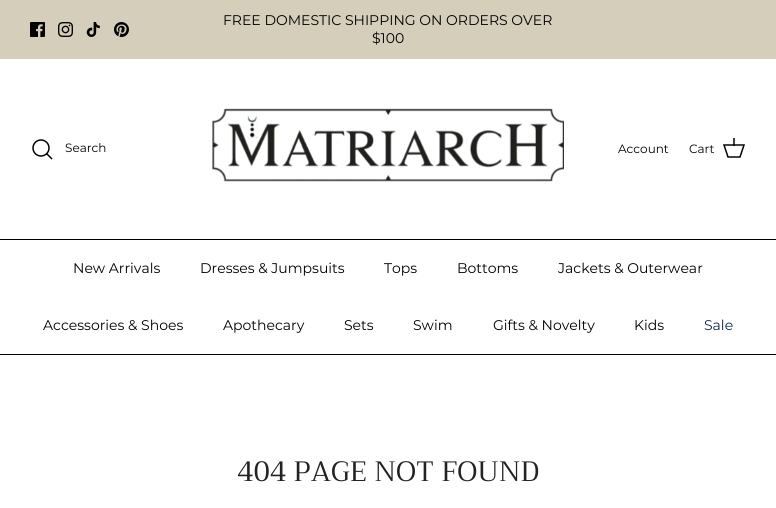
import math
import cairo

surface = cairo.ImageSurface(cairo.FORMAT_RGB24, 776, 508)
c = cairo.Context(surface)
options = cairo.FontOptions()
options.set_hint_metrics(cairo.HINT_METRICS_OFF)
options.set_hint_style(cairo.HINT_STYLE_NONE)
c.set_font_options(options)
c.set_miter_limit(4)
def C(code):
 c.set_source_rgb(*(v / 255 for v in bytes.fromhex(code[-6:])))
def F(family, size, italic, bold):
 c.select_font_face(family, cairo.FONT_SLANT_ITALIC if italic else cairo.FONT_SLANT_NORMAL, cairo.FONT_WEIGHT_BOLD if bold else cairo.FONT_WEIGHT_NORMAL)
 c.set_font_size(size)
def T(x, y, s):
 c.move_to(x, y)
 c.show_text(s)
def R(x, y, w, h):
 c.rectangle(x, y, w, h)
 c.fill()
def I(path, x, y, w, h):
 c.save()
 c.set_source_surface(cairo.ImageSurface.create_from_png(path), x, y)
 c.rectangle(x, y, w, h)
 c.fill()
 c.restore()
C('ffffff')
c.paint()
C('d4ceba')
R(0,0,776,59)
I('1.png',30,22,15,15)
I('2.png',58,22,15,15)
I('3.png',86,22,14,15)
I('4.png',114,22,15,15)
F('Montserrat',14,0,0)
C('000000')
T(223,25,'FREE DOMESTIC SHIPPING ON ORDERS OVER')
T(372,43,'$100')
R(0,239,776,1)
c.new_path()
c.arc(41,148,8,0,2 * math.pi)
c.set_line_width(1.5)
c.stroke()
F('Montserrat',12,0,0)
T(65,152,'Search')
c.new_path()
c.move_to(47,154)
c.line_to(51.5,158.5)
c.set_line_cap(cairo.LINE_CAP_SQUARE)
c.stroke()
I('5.png',212,108,352,74)
T(618,153,'Account')
T(689,153,'Cart')
c.new_path()
c.move_to(724,145)
c.line_to(744,145)
c.line_to(740,157)
c.line_to(728,157)
c.close_path()
c.set_line_cap(cairo.LINE_CAP_BUTT)
c.stroke()
c.set_source_rgba(0,0,0,0.75)
R(733,138,2,8)
C('000000')
R(0,354,776,1)
F('Montserrat',14,0,0)
T(73,273,'New Arrivals')
T(200,273,'Dresses & Jumpsuits')
T(384,273,'Tops')
T(457,273,'Bottoms')
T(558,273,'Jackets & Outerwear')
T(43,330,'Accessories & Shoes')
T(223,330,'Apothecary')
T(344,330,'Sets')
T(413,330,'Swim')
T(493,330,'Gifts & Novelty')
T(634,330,'Kids')
C('11274e')
T(704,330,'Sale')
F('Trirong',28,0,0)
C('202223')
T(237,481,'404 PAGE NOT FOUND')
surface.write_to_png('o.png')
